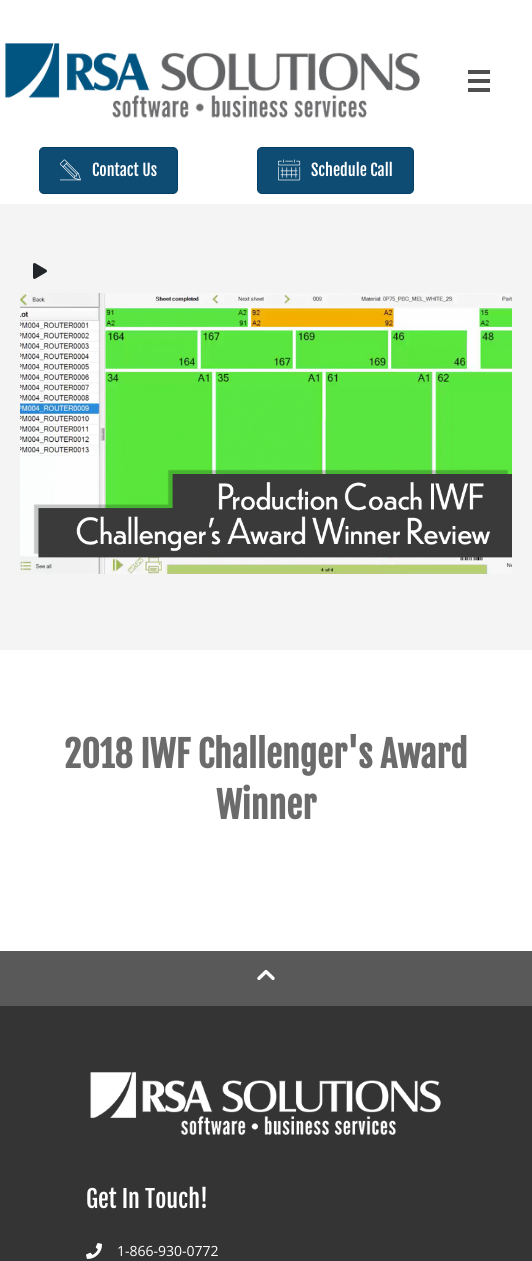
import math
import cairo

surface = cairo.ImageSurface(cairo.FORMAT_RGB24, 532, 1261)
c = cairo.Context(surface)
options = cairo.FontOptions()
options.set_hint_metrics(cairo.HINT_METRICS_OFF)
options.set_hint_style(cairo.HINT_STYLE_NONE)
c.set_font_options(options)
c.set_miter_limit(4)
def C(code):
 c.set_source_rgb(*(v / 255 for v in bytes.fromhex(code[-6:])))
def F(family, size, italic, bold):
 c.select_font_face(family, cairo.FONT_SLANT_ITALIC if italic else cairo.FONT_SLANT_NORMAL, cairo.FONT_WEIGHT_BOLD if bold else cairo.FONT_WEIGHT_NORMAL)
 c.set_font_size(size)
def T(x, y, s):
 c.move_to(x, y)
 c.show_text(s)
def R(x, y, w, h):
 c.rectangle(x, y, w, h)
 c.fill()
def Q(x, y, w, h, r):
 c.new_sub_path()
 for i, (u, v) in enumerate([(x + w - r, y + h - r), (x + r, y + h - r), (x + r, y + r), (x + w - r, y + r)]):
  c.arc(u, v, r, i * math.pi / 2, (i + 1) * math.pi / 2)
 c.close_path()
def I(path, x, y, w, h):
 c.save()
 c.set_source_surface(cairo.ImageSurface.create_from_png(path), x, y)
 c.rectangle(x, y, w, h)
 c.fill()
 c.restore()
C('ffffff')
c.paint()
I('1.png',5,43,415,75)
C('4f4f4f')
R(468,70,22,4)
R(468,79,22,4)
R(468,88,22,4)
C('0e4c73')
Q(39.5,147.5,138,46,4.5)
c.fill_preserve()
C('024067')
c.set_line_width(1)
c.stroke()
I('2.png',60,159,21,22)
F('Fjalla One',16,0,0)
C('ffffff')
T(92,176,'Contact Us')
C('0e4c73')
Q(257.5,147.5,156,46,4.5)
c.fill_preserve()
C('024067')
c.stroke()
I('3.png',278,159,23,22)
C('ffffff')
T(311,176,'Schedule Call')
C('f4f4f4')
R(0,204,532,446)
I('4.png',33,263,14,16)
I('5.png',20,293,492,281)
F('Fjalla One',36,0,1)
C('6b6b6b')
T(64,768,'2018 IWF Challenger\'s Award')
T(216,819,'Winner')
C('595959')
R(0,951,532,55)
I('6.png',257,969,18,11)
C('343434')
R(0,1006,532,255)
I('7.png',90,1072,351,63)
F('Fjalla One',24,0,0)
C('ffffff')
T(86,1208,'Get In Touch!')
I('8.png',86,1243,16,16)
F('Open Sans',14,0,0)
T(117,1256,'1-866-930-0772')
surface.write_to_png('o.png')
